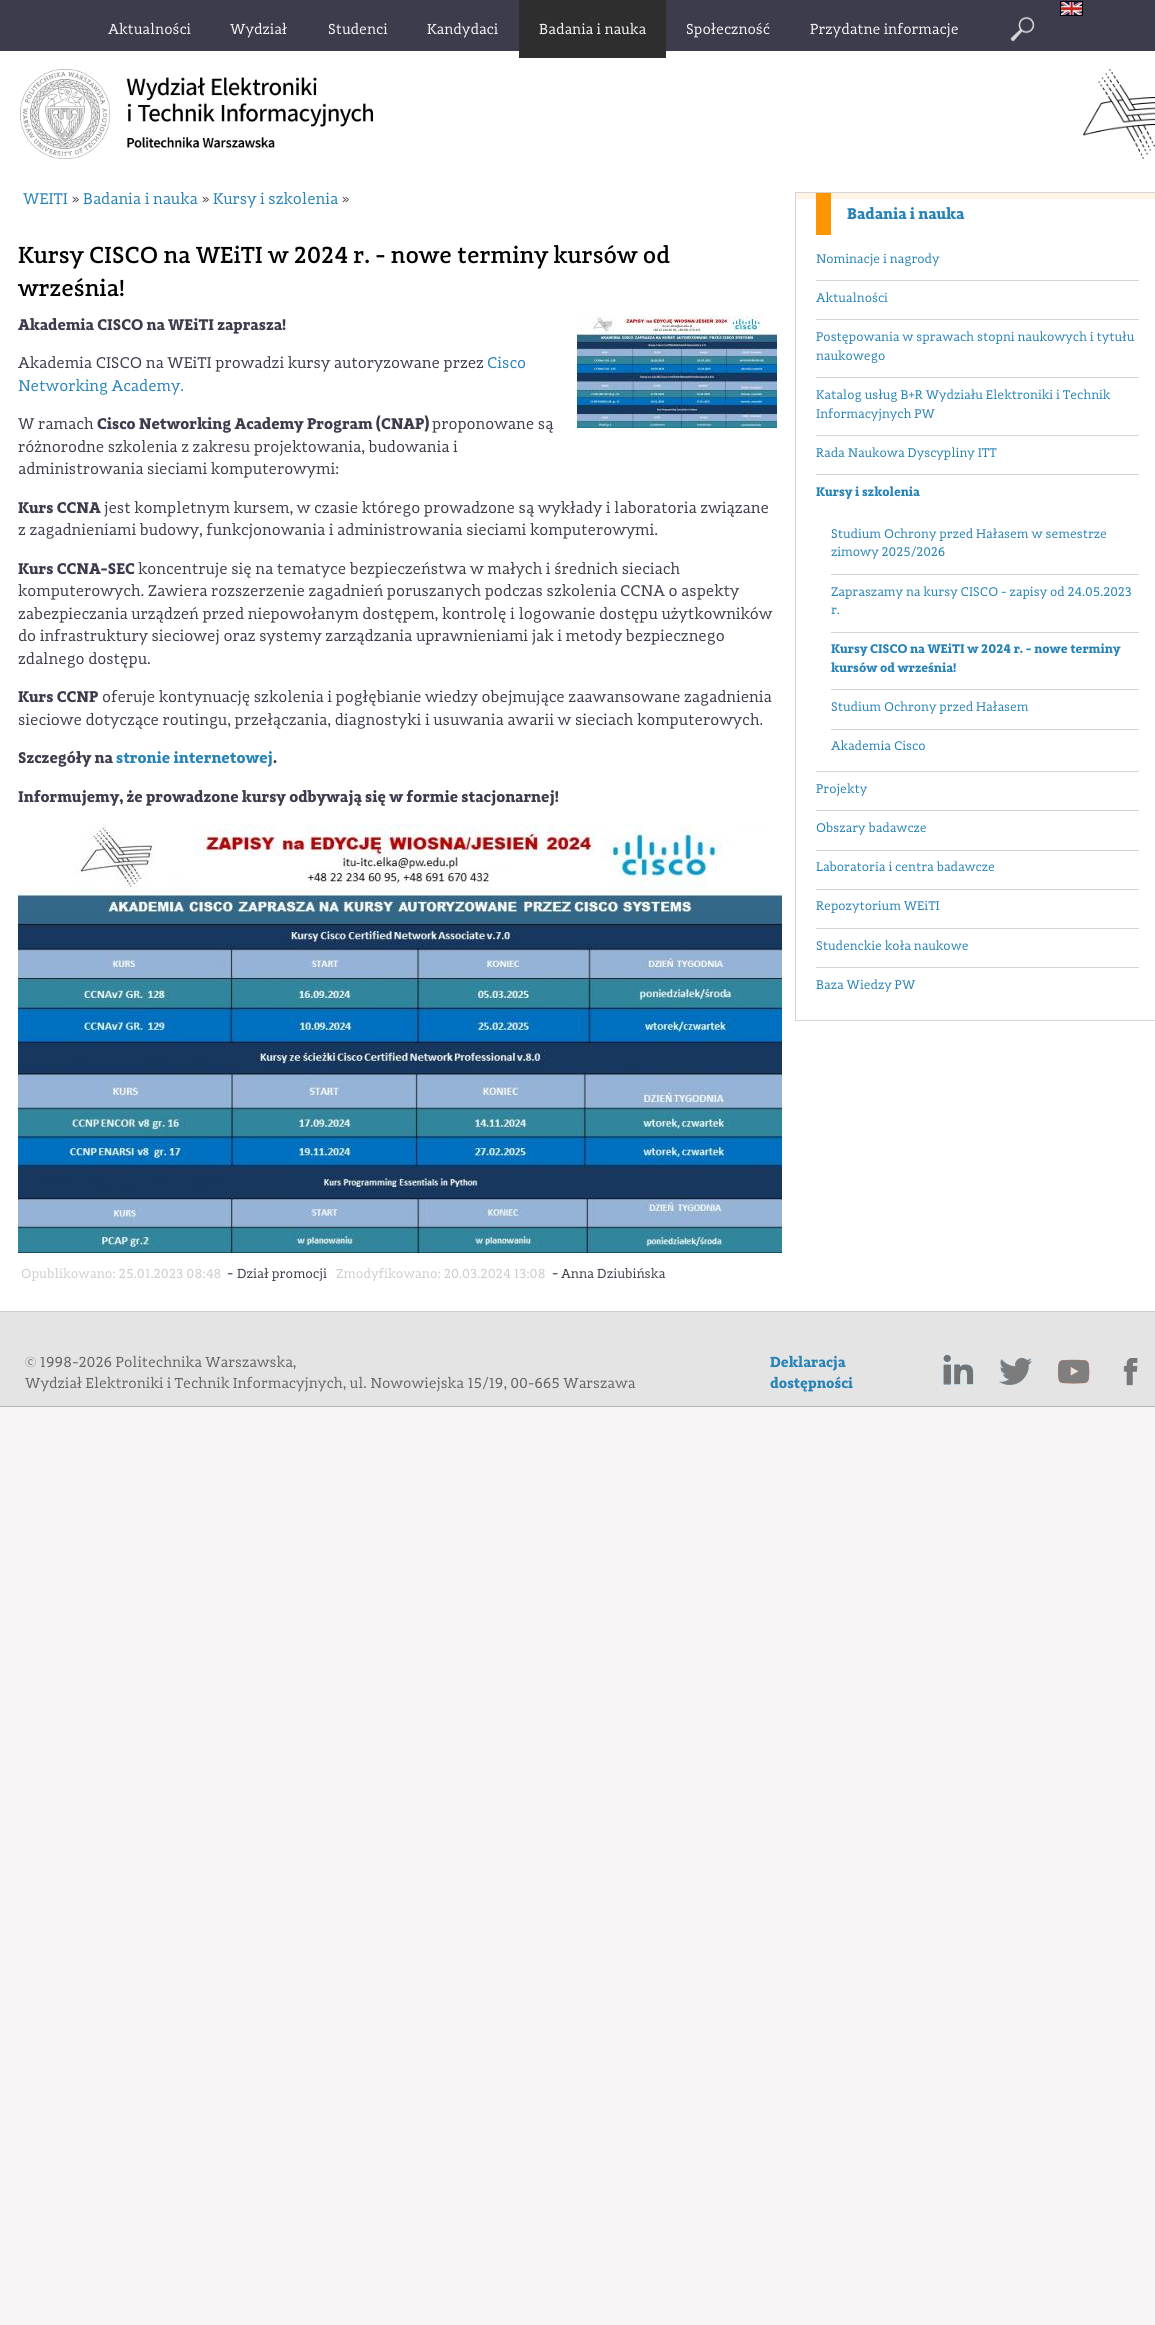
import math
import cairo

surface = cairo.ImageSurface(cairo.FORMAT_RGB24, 1155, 2325)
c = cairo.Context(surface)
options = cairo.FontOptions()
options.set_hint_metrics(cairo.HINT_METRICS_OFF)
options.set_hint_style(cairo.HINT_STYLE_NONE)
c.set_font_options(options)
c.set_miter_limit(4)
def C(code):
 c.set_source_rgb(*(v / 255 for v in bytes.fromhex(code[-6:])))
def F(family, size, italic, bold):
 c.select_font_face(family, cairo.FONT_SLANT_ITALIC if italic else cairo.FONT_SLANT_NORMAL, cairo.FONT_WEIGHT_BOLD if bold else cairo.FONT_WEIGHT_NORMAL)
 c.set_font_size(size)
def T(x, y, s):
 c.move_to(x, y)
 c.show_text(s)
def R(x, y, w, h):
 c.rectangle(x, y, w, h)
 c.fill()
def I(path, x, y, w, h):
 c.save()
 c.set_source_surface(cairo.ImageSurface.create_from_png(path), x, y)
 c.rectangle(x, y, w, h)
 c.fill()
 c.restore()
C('f7f5f6')
c.paint()
C('3c3c4c')
R(0,0,1155,51)
I('1.png',1060,1,23,15)
F('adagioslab',15,0,0)
C('f7f5f6')
T(108,34,'Aktualności')
T(230,34,'Wydział')
T(328,34,'Studenci')
T(427,34,'Kandydaci')
C('ffffff')
R(0,51,1155,1260)
C('2e2e2e')
R(519,0,147,58)
C('f7f5f6')
T(539,34,'Badania i nauka')
T(686,34,'Społeczność')
T(810,34,'Przydatne informacje')
I('2.png',1010,16,25,26)
I('3.png',20,69,353,90)
I('4.png',1083,69,72,90)
F('adagioslab',16.05,0,0)
C('2782b6')
T(23,204,'WEITI')
F('adagioslab',13,0,0)
C('333333')
T(72,203,'»')
F('adagioslab',16.05,0,0)
C('2782b6')
T(83,204,'Badania i nauka')
F('adagioslab',13,0,0)
C('333333')
T(202,203,'»')
F('adagioslab',16.05,0,0)
C('2782b6')
T(213,204,'Kursy i szkolenia')
F('adagioslab',13,0,0)
C('333333')
T(342,203,'»')
F('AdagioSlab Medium',24,0,0)
C('000000')
T(18,263,'Kursy CISCO na WEiTI w 2024 r. - nowe terminy kursów od')
T(18,296,'września!')
I('5.png',577,316,200,112)
F('AdagioSlab',16.05,0,1)
C('3c3c4c')
T(18,330,'Akademia CISCO na WEiTI zaprasza!')
F('adagioslab',16.05,0,0)
T(18,368,'Akademia CISCO na WEiTI prowadzi kursy autoryzowane przez')
C('2782b6')
T(487,368,'Cisco')
T(18,391,'Networking Academy.')
C('3c3c4c')
T(18,429,'W ramach')
F('AdagioSlab',16.05,0,1)
T(97,429,'Cisco Networking Academy Program (CNAP)')
F('adagioslab',16.05,0,0)
T(432,429,'proponowane są')
T(18,452,'różnorodne szkolenia z zakresu projektowania, budowania i')
T(18,474,'administrowania sieciami komputerowymi:')
F('AdagioSlab',16.05,0,1)
T(18,513,'Kurs CCNA')
F('adagioslab',16.05,0,0)
T(104,513,'jest kompletnym kursem, w czasie którego prowadzone są wykłady i laboratoria związane')
T(18,535,'z zagadnieniami budowy, funkcjonowania i administrowania sieciami komputerowymi.')
F('AdagioSlab',16.05,0,1)
T(18,574,'Kurs CCNA-SEC')
F('adagioslab',16.05,0,0)
T(138,574,'koncentruje się na tematyce bezpieczeństwa w małych i średnich sieciach')
T(18,596,'komputerowych. Zawiera rozszerzenie zagadnień poruszanych podczas szkolenia CCNA o aspekty')
T(18,619,'zabezpieczania urządzeń przed niepowołanym dostępem, kontrolę i logowanie dostępu użytkowników')
T(18,641,'do infrastruktury sieciowej oraz systemy zarządzania uprawnieniami jak i metody bezpiecznego')
T(18,664,'zdalnego dostępu.')
F('AdagioSlab',16.05,0,1)
T(18,702,'Kurs CCNP')
F('adagioslab',16.05,0,0)
T(102,702,'oferuje kontynuację szkolenia i pogłębianie wiedzy obejmujące zaawansowane zagadnienia')
T(18,725,'sieciowe dotyczące routingu, przełączania, diagnostyki i usuwania awarii w sieciach komputerowych.')
F('AdagioSlab',16.05,0,1)
T(18,763,'Szczegóły na')
C('2782b6')
T(116,763,'stronie internetowej')
C('3c3c4c')
T(273,763,'.')
T(18,802,'Informujemy, że prowadzone kursy odbywają się w formie stacjonarnej!')
I('6.png',18,824,764,429)
F('adagioslab',13.5,0,0)
C('cccccc')
T(21,1278,'Opublikowano: 25.01.2023 08:48')
F('adagioslab',15,0,0)
C('3c3c4c')
T(227,1278,'-')
F('adagioslab',13.5,0,0)
T(237,1278,'Dział promocji')
C('cccccc')
T(336,1278,'Zmodyfikowano: 20.03.2024 13:08')
F('adagioslab',15,0,0)
C('3c3c4c')
T(552,1278,'-')
F('adagioslab',13.5,0,0)
T(561,1278,'Anna Dziubińska')
c.rectangle(795.5,192.5,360,828)
C('d4d4d4')
c.set_line_width(1)
c.stroke()
C('fff4e5')
R(796,193,359,6)
C('ff9600')
R(816,193,15,42)
F('AdagioSlab',16,0,1)
C('2782b6')
T(847,219,'Badania i nauka')
F('adagioslab',13,0,0)
T(816,263,'Nominacje i nagrody')
C('d4d4d4')
R(816,280,323,1)
C('2782b6')
T(816,302,'Aktualności')
C('d4d4d4')
R(816,319,323,1)
C('2782b6')
T(816,341,'Postępowania w sprawach stopni naukowych i tytułu')
T(816,360,'naukowego')
C('d4d4d4')
R(816,377,323,1)
C('2782b6')
T(816,399,'Katalog usług B+R Wydziału Elektroniki i Technik')
T(816,418,'Informacyjnych PW')
C('d4d4d4')
R(816,435,323,1)
C('2782b6')
T(816,457,'Rada Naukowa Dyscypliny ITT')
C('d4d4d4')
R(816,474,323,1)
F('AdagioSlab',13,0,1)
C('2782b6')
T(816,496,'Kursy i szkolenia')
F('adagioslab',13,0,0)
T(831,538,'Studium Ochrony przed Hałasem w semestrze')
T(831,556,'zimowy 2025/2026')
C('d4d4d4')
R(831,574,308,1)
C('2782b6')
T(831,596,'Zapraszamy na kursy CISCO - zapisy od 24.05.2023')
T(831,614,'r.')
C('d4d4d4')
R(831,632,308,1)
F('AdagioSlab',13,0,1)
C('2782b6')
T(831,653,'Kursy CISCO na WEiTI w 2024 r. - nowe terminy')
T(831,672,'kursów od września!')
C('d4d4d4')
R(831,689,308,1)
F('adagioslab',13,0,0)
C('2782b6')
T(831,711,'Studium Ochrony przed Hałasem')
C('d4d4d4')
R(831,729,308,1)
C('2782b6')
T(831,750,'Akademia Cisco')
C('d4d4d4')
R(816,771,323,1)
C('2782b6')
T(816,793,'Projekty')
C('d4d4d4')
R(816,810,323,1)
C('2782b6')
T(816,832,'Obszary badawcze')
C('d4d4d4')
R(816,850,323,1)
C('2782b6')
T(816,871,'Laboratoria i centra badawcze')
C('d4d4d4')
R(816,889,323,1)
C('2782b6')
T(816,910,'Repozytorium WEiTI')
C('d4d4d4')
R(816,928,323,1)
C('2782b6')
T(816,950,'Studenckie koła naukowe')
C('d4d4d4')
R(816,967,323,1)
C('2782b6')
T(816,989,'Baza Wiedzy PW')
C('e4e4e4')
R(0,1312,1155,94)
C('b7b7b7')
R(0,1406,1155,1)
C('cdcdcd')
R(0,1311,1155,1)
F('adagioslab',15,0,0)
C('666666')
T(25,1367,'© 1998-2026 Politechnika Warszawska,')
F('AdagioSlab',15,0,1)
C('2782b6')
T(770,1367,'Deklaracja')
T(770,1388,'dostępności')
I('7.png',943,1354,31,31)
I('8.png',943,1354,31,31)
I('9.png',999,1357,33,28)
I('10.png',999,1357,33,28)
I('11.png',1058,1359,32,25)
I('12.png',1058,1359,32,25)
I('13.png',1123,1358,15,28)
I('14.png',1123,1358,15,28)
F('adagioslab',15,0,0)
C('666666')
T(25,1388,'Wydział Elektroniki i Technik Informacyjnych, ul. Nowowiejska 15/19, 00-665 Warszawa')
surface.write_to_png('o.png')
